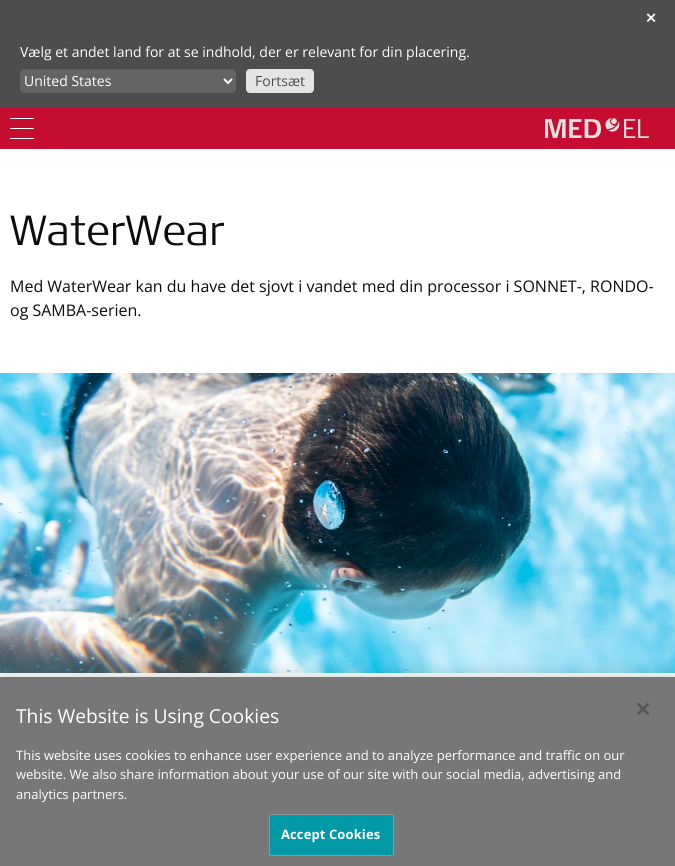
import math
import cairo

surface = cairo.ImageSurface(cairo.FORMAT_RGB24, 675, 866)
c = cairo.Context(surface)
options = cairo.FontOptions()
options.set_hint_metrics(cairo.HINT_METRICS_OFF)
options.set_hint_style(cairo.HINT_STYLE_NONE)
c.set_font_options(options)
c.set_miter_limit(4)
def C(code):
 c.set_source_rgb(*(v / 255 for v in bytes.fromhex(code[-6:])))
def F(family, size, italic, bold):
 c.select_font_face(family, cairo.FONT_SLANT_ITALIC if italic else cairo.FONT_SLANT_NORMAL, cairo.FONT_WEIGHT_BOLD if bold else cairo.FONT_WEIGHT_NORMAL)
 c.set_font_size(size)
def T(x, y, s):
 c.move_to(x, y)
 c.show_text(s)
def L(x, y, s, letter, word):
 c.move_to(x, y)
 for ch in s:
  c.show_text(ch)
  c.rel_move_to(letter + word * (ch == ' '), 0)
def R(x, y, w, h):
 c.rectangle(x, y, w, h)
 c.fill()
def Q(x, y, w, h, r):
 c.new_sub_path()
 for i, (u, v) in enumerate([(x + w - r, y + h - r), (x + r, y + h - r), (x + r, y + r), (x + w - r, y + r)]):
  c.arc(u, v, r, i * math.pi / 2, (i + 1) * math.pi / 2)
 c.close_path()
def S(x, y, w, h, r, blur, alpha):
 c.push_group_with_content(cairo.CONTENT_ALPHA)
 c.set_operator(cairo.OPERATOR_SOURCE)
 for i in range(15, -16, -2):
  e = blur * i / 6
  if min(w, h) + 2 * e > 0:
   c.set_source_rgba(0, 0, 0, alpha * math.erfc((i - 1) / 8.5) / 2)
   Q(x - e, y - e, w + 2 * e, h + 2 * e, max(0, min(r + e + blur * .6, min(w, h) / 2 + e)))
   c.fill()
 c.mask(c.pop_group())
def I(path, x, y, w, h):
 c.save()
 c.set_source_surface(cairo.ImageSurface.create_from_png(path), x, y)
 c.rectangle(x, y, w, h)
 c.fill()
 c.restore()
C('ffffff')
c.paint()
C('4d4d4d')
R(0,0,675,108)
F('DejaVu Sans',14,0,1)
C('ffffff')
T(645,23,'✕')
F('Open Sans',14,0,0)
T(20,57,'Vælg et andet land for at se indhold, der er relevant for din placering.')
C('646464')
Q(20,69,216,24,4)
c.fill()
c.set_source_rgba(0,0,0,0.07)
c.new_path()
c.move_to(24,70)
c.line_to(232,70)
c.curve_to(234,70,236,72,236,74)
c.curve_to(236,71,235,69,232,69)
c.line_to(22,69)
c.curve_to(20,70,20,72,20,74)
c.curve_to(20,72,22,70,24,70)
c.close_path()
c.fill()
c.new_path()
c.move_to(224,79)
c.line_to(228,83)
c.line_to(232,79)
C('ffffff')
c.stroke()
T(24,86,'United States')
C('e4e4e4')
Q(246.5,69.5,67,23,3.5)
c.fill_preserve()
c.set_line_width(1)
c.stroke()
C('4d4d4d')
T(255,86,'Fortsæt')
C('c60c30')
R(0,108,675,41)
C('ffffff')
Q(10,118,24,1,.5)
c.fill()
Q(10,128,24,1,.5)
c.fill()
Q(10,138,24,1,.5)
c.fill()
I('1.png',545,118,104,20)
F('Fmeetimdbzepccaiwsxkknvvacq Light',42,0,0)
C('0d0d0d')
T(10,245,'WaterWear')
F('Open Sans',16,0,0)
T(10,292,'Med WaterWear kan du have det sjovt i vandet med din processor i SONNET-, RONDO-')
T(10,316,'og SAMBA-serien.')
I('2.png',0,373,675,300)
C('000000')
S(0,677,675,189,0,9,.2)
C('777777')
R(0,677,675,189)
F('Open Sans',19.25,0,0)
C('ffffff')
T(16,723,'This Website is Using Cookies')
F('Open Sans',13,0,0)
T(16,760,'This website uses cookies to enhance user experience and to analyze performance and traffic on our')
T(16,779,'website. We also share information about your use of our site with our social media, advertising and')
T(16,799,'analytics partners.')
C('009aa6')
Q(269.5,814.5,124,41,1.5)
c.fill_preserve()
C('979594')
c.stroke()
F('Open Sans',13,0,1)
C('ffffff')
L(281,839,'Accept Cookies',.1,0)
I('3.png',637,703,12,12)
surface.write_to_png('o.png')
